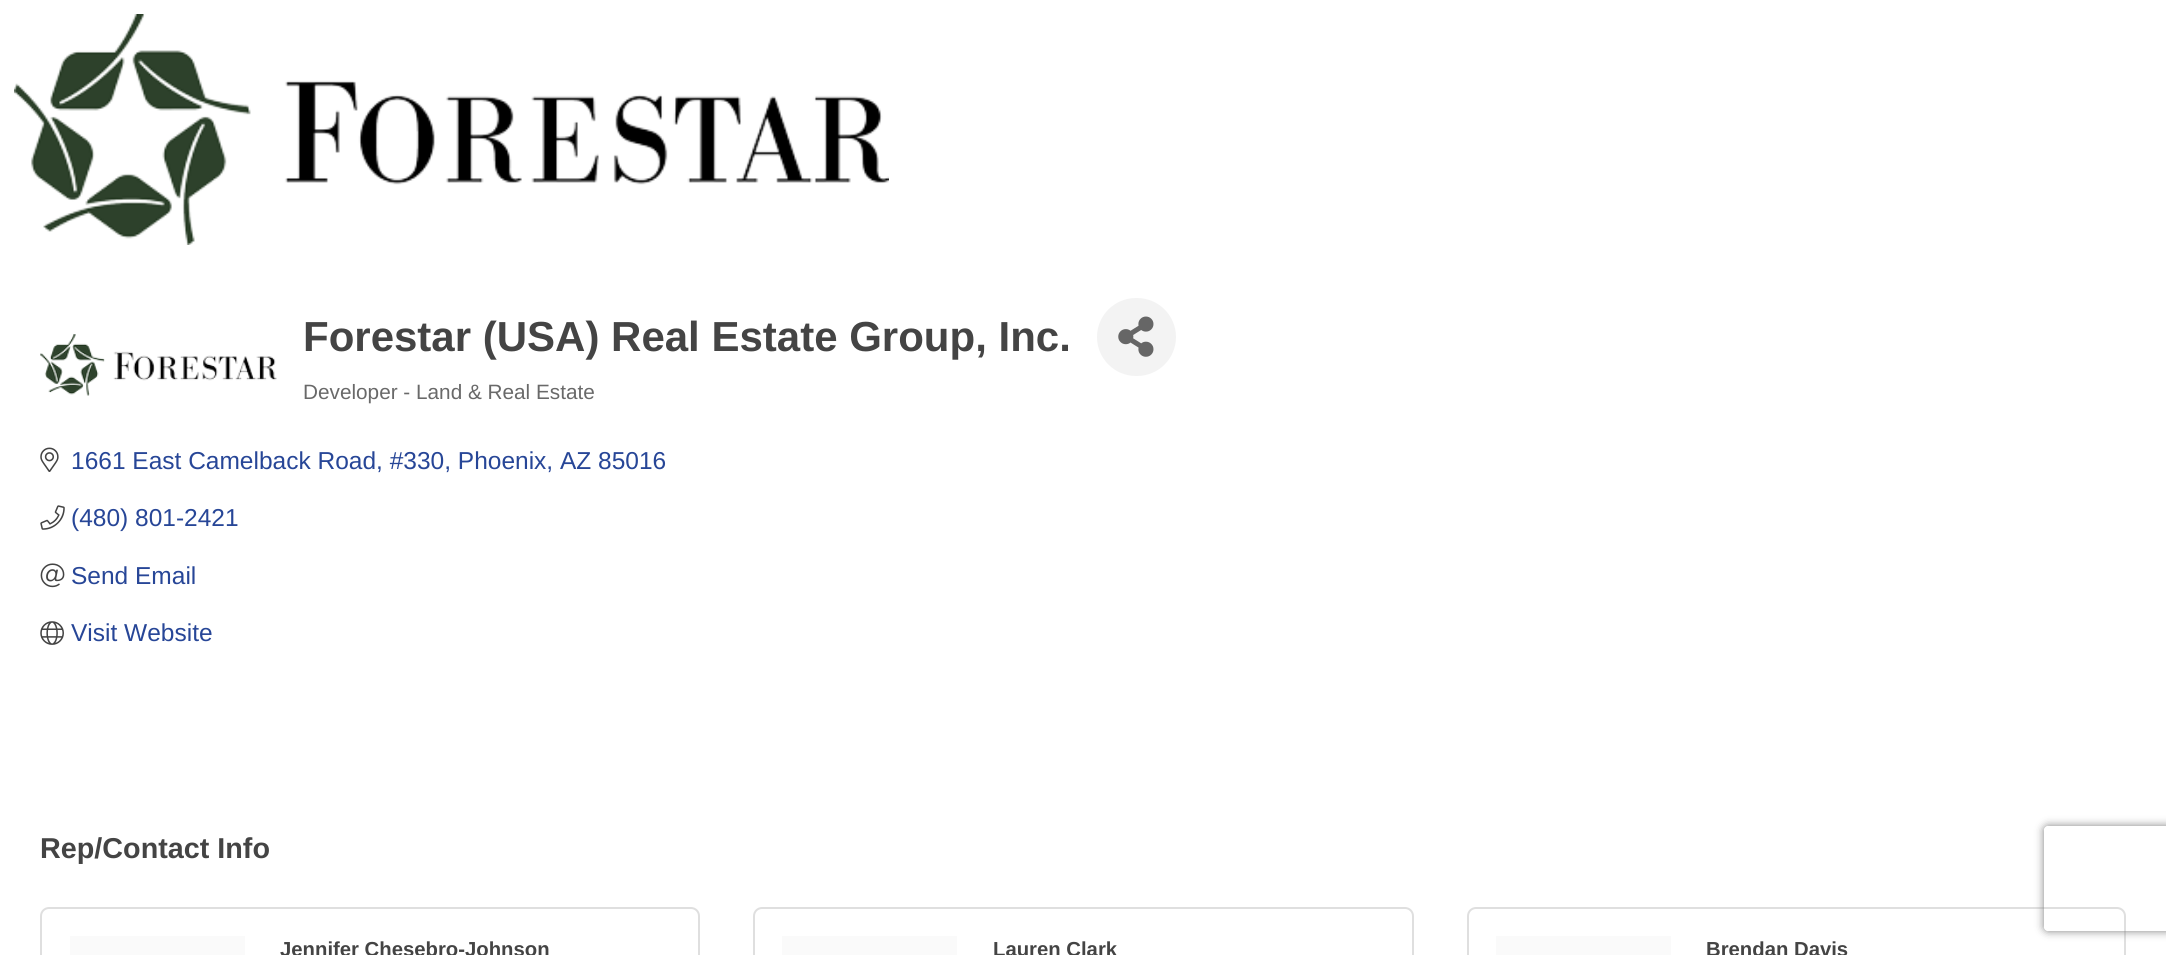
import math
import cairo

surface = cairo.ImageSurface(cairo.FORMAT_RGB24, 2166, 955)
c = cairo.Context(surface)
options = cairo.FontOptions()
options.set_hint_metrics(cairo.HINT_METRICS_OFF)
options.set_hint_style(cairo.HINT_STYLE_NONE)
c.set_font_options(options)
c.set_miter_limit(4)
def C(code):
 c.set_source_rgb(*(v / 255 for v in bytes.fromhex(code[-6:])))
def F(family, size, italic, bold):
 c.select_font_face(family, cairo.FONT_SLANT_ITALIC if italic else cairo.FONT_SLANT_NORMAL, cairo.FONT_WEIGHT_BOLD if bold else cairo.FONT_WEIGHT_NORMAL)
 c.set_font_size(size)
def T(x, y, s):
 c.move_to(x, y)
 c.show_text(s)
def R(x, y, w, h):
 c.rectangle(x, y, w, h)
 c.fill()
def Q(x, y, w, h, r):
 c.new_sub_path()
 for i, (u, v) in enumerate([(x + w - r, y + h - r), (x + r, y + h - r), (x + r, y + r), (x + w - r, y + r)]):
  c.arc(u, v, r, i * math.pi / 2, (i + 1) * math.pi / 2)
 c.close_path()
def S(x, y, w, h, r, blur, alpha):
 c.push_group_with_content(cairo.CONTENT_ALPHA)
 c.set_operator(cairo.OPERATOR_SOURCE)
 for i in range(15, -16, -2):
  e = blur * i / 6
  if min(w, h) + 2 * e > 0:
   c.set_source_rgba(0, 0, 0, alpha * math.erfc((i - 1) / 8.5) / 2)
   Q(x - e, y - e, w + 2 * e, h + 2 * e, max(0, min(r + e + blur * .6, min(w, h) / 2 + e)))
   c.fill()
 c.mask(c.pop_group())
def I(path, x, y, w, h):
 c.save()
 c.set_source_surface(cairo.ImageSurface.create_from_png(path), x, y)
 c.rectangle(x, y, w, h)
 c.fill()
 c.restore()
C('ffffff')
c.paint()
I('1.png',14,14,875,231)
I('2.png',40,334,237,62)
F('Liberation Sans',42,0,1)
C('444444')
T(303,351,'Forestar (USA) Real Estate Group, Inc.')
C('f3f3f3')
Q(1097,298,79,78,39)
c.fill()
I('3.png',1118,316,36,41)
F('Liberation Sans',20.75,0,0)
C('696969')
T(303,399,'Developer - Land & Real Estate')
I('4.png',40,447,19,25)
F('Liberation Sans',24.5,0,0)
C('274697')
T(71,469,'1661 East Camelback Road, #330, Phoenix, AZ 85016')
I('5.png',40,505,25,25)
T(71,526,'(480) 801-2421')
I('6.png',40,563,25,25)
T(71,584,'Send Email')
I('7.png',40,621,24,24)
T(71,641,'Visit Website')
F('Liberation Sans',28.75,0,1)
C('444444')
T(40,858,'Rep/Contact Info')
Q(41,908,658,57,8)
C('dfdfdf')
c.stroke()
C('fafafa')
R(70,936,175,19)
F('Liberation Sans',20.3,0,1)
C('444444')
T(280,956,'Jennifer Chesebro-Johnson')
Q(754,908,659,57,8)
C('dfdfdf')
c.stroke()
C('fafafa')
R(782,936,175,19)
C('444444')
T(993,956,'Lauren Clark')
Q(1468,908,657,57,8)
C('dfdfdf')
c.stroke()
C('fafafa')
R(1496,936,175,19)
C('444444')
T(1706,956,'Brendan Davis')
c.save()
c.set_fill_rule(cairo.FILL_RULE_EVEN_ODD)
c.new_path()
c.move_to(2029,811)
c.line_to(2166,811)
c.line_to(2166,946)
c.line_to(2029,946)
c.close_path()
c.move_to(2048,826)
c.line_to(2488,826)
c.curve_to(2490,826,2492,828,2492,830)
c.line_to(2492,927)
c.curve_to(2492,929,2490,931,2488,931)
c.line_to(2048,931)
c.curve_to(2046,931,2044,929,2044,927)
c.line_to(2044,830)
c.curve_to(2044,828,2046,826,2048,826)
c.close_path()
c.clip()
C('808080')
S(2044,826,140,105,4,4.5,1)
c.restore()
surface.write_to_png('o.png')
